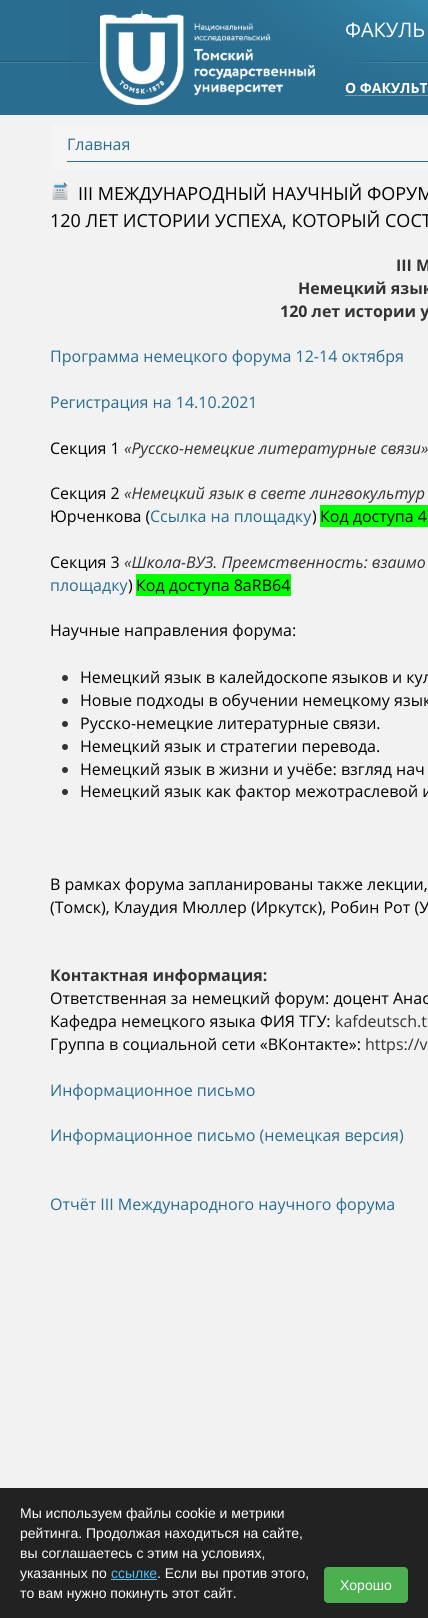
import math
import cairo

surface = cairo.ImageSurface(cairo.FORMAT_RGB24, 428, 1618)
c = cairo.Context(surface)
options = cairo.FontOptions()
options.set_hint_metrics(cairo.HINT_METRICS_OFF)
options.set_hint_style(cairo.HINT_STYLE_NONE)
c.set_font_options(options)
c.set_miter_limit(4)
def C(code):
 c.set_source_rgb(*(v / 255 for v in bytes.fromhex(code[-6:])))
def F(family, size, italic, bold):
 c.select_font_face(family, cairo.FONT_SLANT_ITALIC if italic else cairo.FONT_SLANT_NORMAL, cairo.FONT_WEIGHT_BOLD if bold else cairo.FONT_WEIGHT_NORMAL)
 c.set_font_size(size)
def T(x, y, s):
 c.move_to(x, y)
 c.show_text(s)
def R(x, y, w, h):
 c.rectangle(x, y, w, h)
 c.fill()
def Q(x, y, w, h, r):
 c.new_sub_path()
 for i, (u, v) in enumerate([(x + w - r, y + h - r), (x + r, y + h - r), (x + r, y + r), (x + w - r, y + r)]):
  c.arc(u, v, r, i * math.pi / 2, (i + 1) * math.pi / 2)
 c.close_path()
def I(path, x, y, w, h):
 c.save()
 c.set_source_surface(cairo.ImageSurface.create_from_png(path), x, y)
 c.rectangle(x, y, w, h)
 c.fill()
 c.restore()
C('f2f2f2')
c.paint()
C('296d90')
R(0,0,428,115)
I('1.png',0,61,69,2)
I('2.png',69,0,359,81)
I('3.png',100,10,215,95)
F('Open Sans',20,0,0)
C('ffffff')
T(345,37,'ФАКУЛЬ')
F('Open Sans',14,0,1)
T(345,93,'О ФАКУЛЬТ')
C('769ab0')
R(345,95,83,1)
C('f5f5f5')
Q(52,125,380,45,4)
c.fill()
F('Open Sans',16,0,0)
C('296c8f')
T(67,150,'Главная')
R(67,161,361,1)
I('4.png',52,182,16,18)
F('Open Sans',18,0,0)
C('000000')
T(78,200,'III МЕЖДУНАРОДНЫЙ НАУЧНЫЙ ФОРУМ')
T(50,227,'120 ЛЕТ ИСТОРИИ УСПЕХА, КОТОРЫЙ СОСТ')
F('Open Sans',16,0,1)
C('333333')
T(396,271,'III М')
T(298,294,'Немецкий язык')
T(280,317,'120 лет истории у')
F('Open Sans',16,0,0)
C('296c8f')
T(50,362,'Программа немецкого форума 12-14 октября')
T(50,408,'Регистрация на 14.10.2021')
C('000000')
T(50,454,'Секция 1')
F('Open Sans',16,1,0)
C('333333')
T(124,454,'«Русско-немецкие литературные связи»')
F('Open Sans',16,0,0)
C('000000')
T(50,499,'Секция 2')
F('Open Sans',16,1,0)
C('333333')
T(124,499,'«Немецкий язык в свете лингвокультур')
F('Open Sans',16,0,0)
C('000000')
T(50,522,'Юрченкова (')
C('296c8f')
T(150,522,'Ссылка на площадку')
C('000000')
T(312,522,')')
C('00ff00')
R(320,505,108,22)
C('000000')
T(320,522,'Код доступа 4')
T(50,568,'Секция 3')
F('Open Sans',16,1,0)
C('333333')
T(124,568,'«Школа-ВУЗ. Преемственность: взаимо')
F('Open Sans',16,0,0)
C('296c8f')
T(50,591,'площадку')
C('000000')
T(128,591,')')
C('00ff00')
R(136,574,155,22)
C('000000')
T(136,591,'Код доступа 8aRB64')
T(50,636,'Научные направления форума:')
C('333333')
c.new_path()
c.arc(65,678,3,0,2 * math.pi)
c.fill()
C('000000')
T(80,683,'Немецкий язык в калейдоскопе языков и кул')
C('333333')
c.new_path()
c.arc(65,701,3,0,2 * math.pi)
c.fill()
C('000000')
T(80,706,'Новые подходы в обучении немецкому язык')
C('333333')
c.new_path()
c.arc(65,724,3,0,2 * math.pi)
c.fill()
C('000000')
T(80,729,'Русско-немецкие литературные связи.')
C('333333')
c.new_path()
c.arc(65,747,3,0,2 * math.pi)
c.fill()
C('000000')
T(80,752,'Немецкий язык и стратегии перевода.')
C('333333')
c.new_path()
c.arc(65,770,3,0,2 * math.pi)
c.fill()
C('000000')
T(80,775,'Немецкий язык в жизни и учёбе: взгляд нач')
C('333333')
c.new_path()
c.arc(65,792,3,0,2 * math.pi)
c.fill()
C('000000')
T(80,797,'Немецкий язык как фактор межотраслевой и')
T(50,890,'В рамках форума запланированы также лекции,')
T(50,913,'(Томск), Клаудия Мюллер (Иркутск), Робин Рот (У')
F('Open Sans',16,0,1)
C('333333')
T(50,981,'Контактная информация:')
F('Open Sans',16,0,0)
C('000000')
T(50,1004,'Ответственная за немецкий форум: доцент Анас')
T(50,1027,'Кафедра немецкого языка ФИЯ ТГУ:')
C('333333')
T(335,1027,'kafdeutsch.t')
C('000000')
T(50,1050,'Группа в социальной сети «ВКонтакте»:')
C('333333')
T(365,1050,'https://v')
C('296c8f')
T(50,1096,'Информационное письмо')
T(50,1141,'Информационное письмо (немецкая версия)')
T(50,1210,'Отчёт III Международного научного форума')
C('222222')
R(0,1488,428,130)
F('Liberation Sans',14,0,0)
C('ffffff')
T(20,1518,'Мы используем файлы cookie и метрики')
T(20,1538,'рейтинга. Продолжая находиться на сайте,')
T(20,1558,'вы соглашаетесь с этим на условиях,')
T(20,1578,'указанных по')
C('4fc3f7')
T(111,1578,'ссылке')
R(111,1579,46,1)
C('ffffff')
T(157,1578,'. Если вы против этого,')
T(20,1598,'то вам нужно покинуть этот сайт.')
C('4caf50')
Q(324,1567,84,36,4)
c.fill()
C('ffffff')
T(340,1590,'Хорошо')
surface.write_to_png('o.png')
